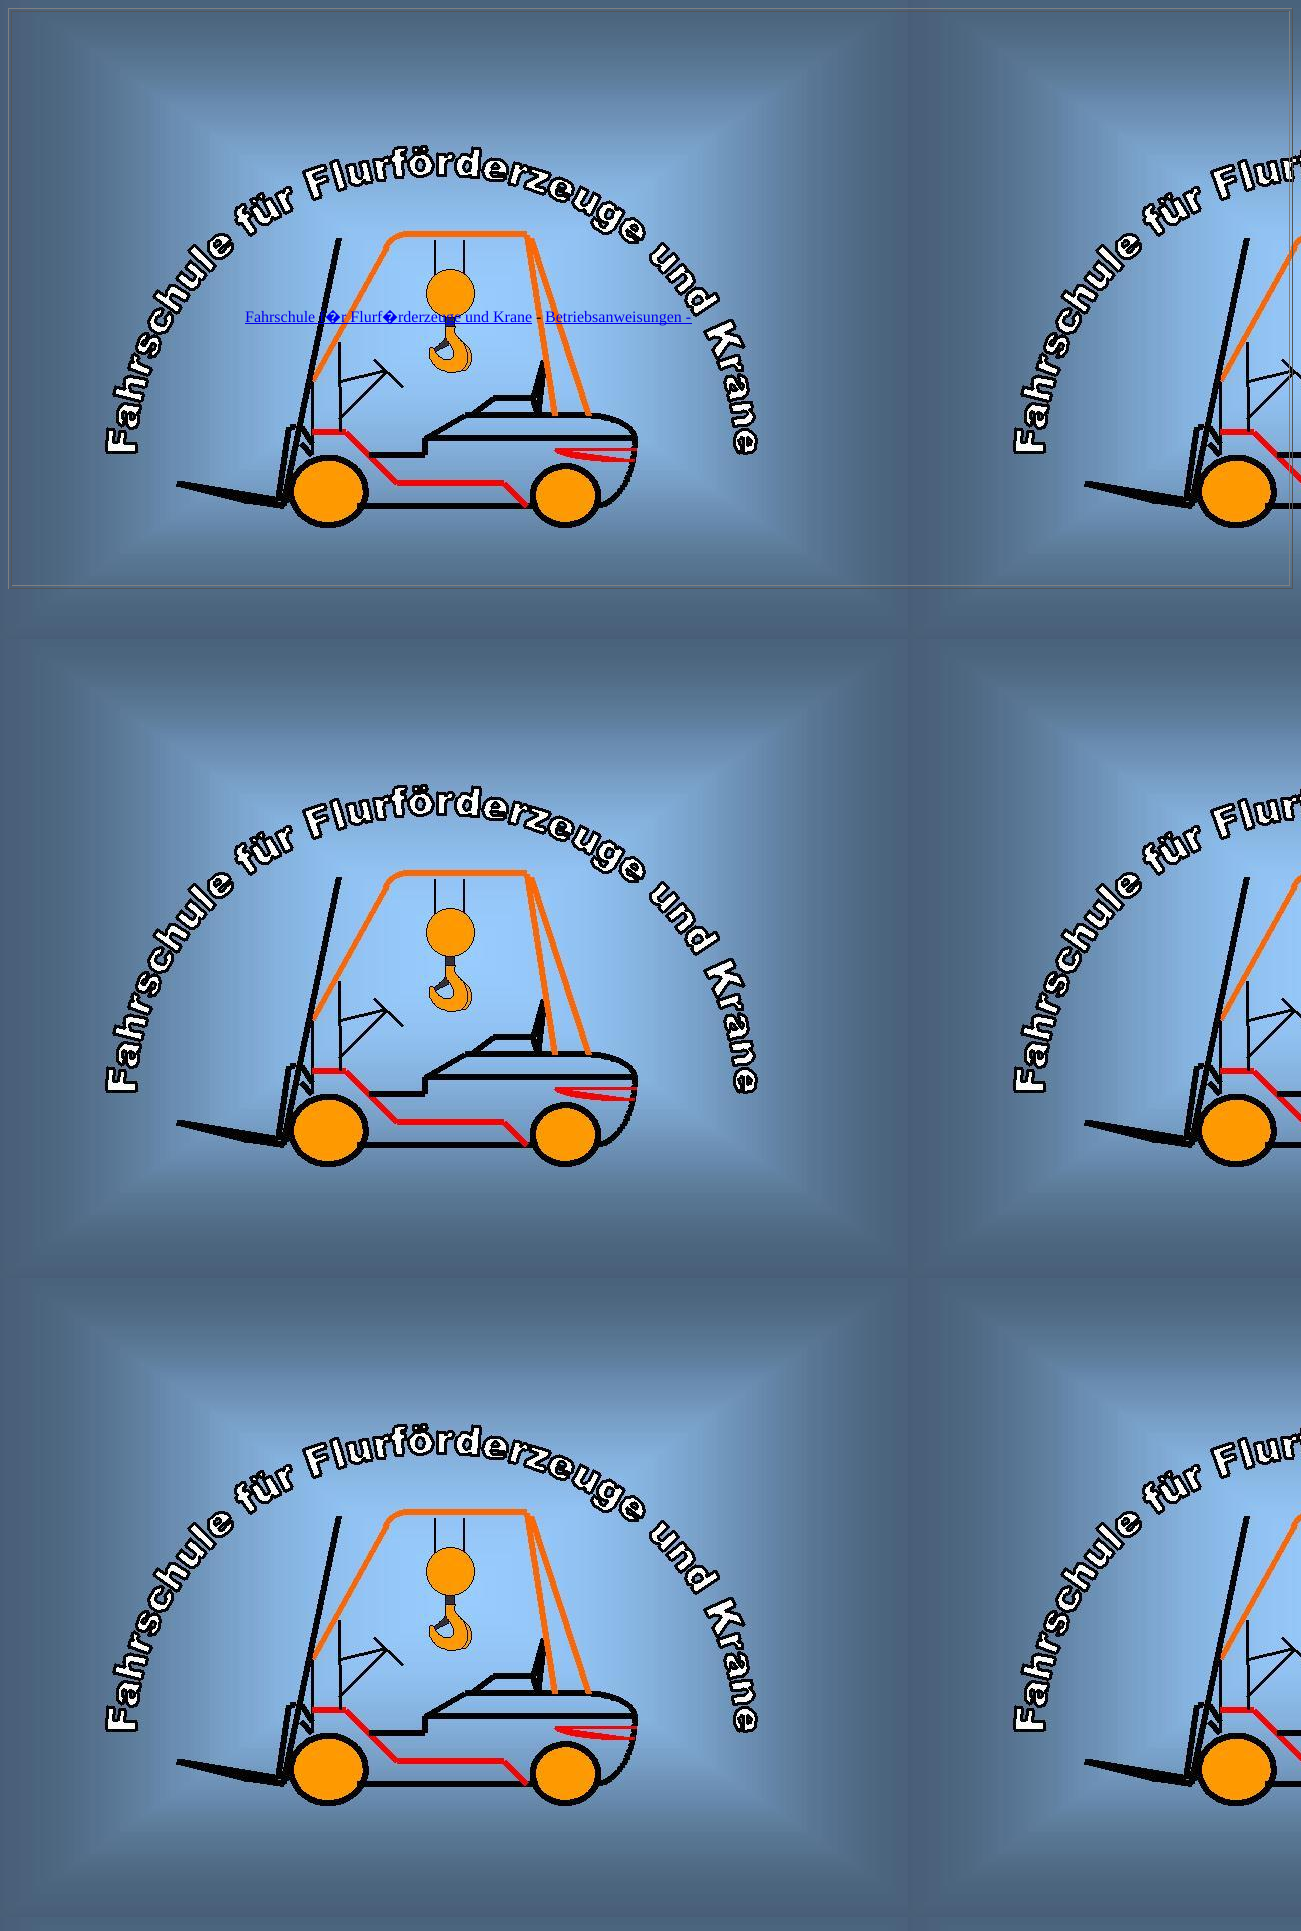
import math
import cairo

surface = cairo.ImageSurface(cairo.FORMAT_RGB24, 1301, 1931)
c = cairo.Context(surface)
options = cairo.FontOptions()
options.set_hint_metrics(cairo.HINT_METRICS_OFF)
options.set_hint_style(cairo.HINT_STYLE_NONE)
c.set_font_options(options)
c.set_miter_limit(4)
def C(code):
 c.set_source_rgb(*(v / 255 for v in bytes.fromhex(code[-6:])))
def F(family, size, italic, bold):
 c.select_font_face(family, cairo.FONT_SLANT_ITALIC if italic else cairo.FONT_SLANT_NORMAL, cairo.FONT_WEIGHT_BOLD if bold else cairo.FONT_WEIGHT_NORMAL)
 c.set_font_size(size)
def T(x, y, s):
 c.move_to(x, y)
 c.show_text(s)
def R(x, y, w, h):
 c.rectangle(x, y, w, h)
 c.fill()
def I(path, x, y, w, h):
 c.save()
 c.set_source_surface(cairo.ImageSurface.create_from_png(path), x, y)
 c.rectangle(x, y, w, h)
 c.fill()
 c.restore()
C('ffffff')
c.paint()
I('1.png',0,0,1301,1931)
C('808080')
R(8,8,1285,1)
C('555555')
R(1292,8,1,581)
R(8,588,1285,1)
C('808080')
R(8,8,1,581)
C('555555')
R(11,11,1279,1)
C('808080')
R(1289,11,1,575)
R(11,585,1279,1)
C('555555')
R(11,11,1,575)
F('Liberation Serif',16,0,0)
C('0000ee')
T(245,322,'Fahrschule f')
R(245,323,287,1)
F('Noto Sans',16,0,0)
T(325,322,'�')
F('Liberation Serif',16,0,0)
T(341,322,'r Flurf')
F('Noto Sans',16,0,0)
T(382,322,'�')
F('Liberation Serif',16,0,0)
T(398,322,'rderzeuge und Krane')
C('000000')
T(536,322,'-')
C('0000ee')
R(545,323,147,1)
T(545,322,'Betriebsanweisungen -')
surface.write_to_png('o.png')
